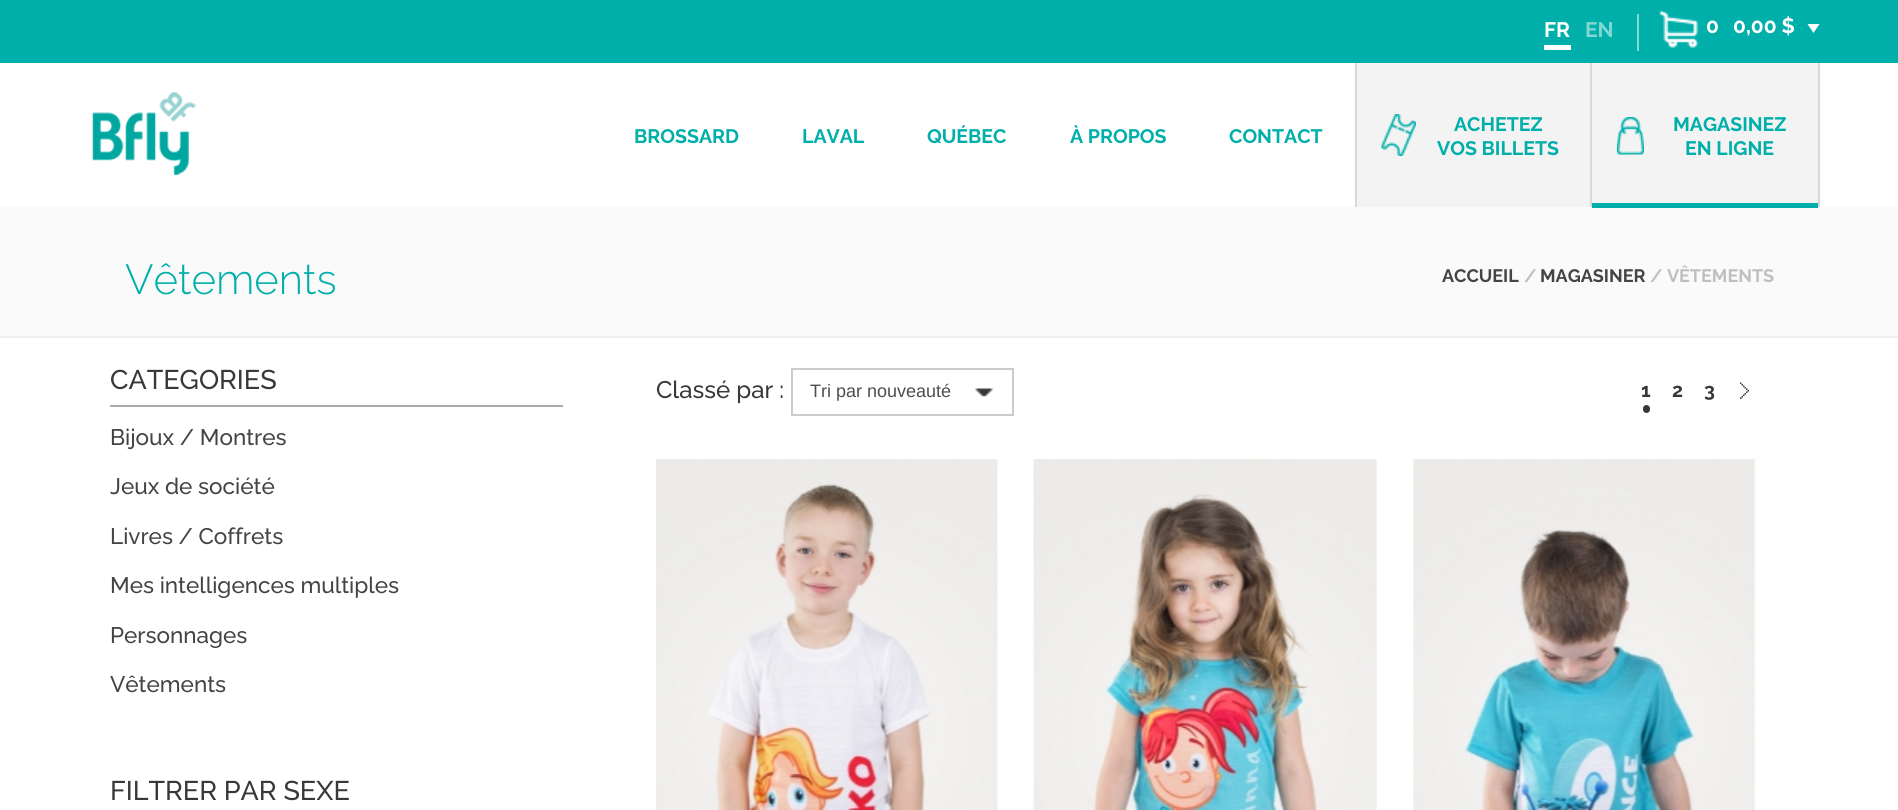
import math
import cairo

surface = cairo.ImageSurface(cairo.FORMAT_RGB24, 1898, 810)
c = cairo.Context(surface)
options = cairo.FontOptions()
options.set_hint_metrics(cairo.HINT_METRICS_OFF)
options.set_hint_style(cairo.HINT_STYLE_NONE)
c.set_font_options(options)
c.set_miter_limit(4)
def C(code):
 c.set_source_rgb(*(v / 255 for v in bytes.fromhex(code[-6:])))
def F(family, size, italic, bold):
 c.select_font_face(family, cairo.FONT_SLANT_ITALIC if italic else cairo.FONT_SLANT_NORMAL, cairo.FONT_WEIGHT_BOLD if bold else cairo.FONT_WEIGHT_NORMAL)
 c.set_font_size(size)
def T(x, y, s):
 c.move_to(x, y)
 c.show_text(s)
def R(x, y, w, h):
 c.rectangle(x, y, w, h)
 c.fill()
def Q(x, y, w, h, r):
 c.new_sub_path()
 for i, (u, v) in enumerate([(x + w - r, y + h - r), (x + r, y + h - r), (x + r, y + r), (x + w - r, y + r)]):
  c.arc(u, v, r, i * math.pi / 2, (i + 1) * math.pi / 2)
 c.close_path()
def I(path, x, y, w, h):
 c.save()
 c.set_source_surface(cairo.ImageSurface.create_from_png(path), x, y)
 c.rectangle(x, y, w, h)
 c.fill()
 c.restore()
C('ffffff')
c.paint()
C('00afa9')
R(0,0,1898,63)
C('ffffff')
R(1544,45,27,5)
F('Raleway',21,0,1)
T(1544,37,'FR')
C('80d7d4')
T(1585,37,'EN')
R(1637,14,2,37)
I('1.png',1659,10,40,38)
C('ffffff')
T(1706,33,'0')
T(1733,33,'0,00 $')
c.new_path()
c.move_to(1807.5,24)
c.line_to(1819.5,24)
c.line_to(1813.5,33)
c.close_path()
c.fill()
I('2.png',91,92,106,84)
F('Raleway',19.5,0,1)
C('00afa9')
T(634,143,'BROSSARD')
T(802,143,'LAVAL')
T(927,143,'QUÉBEC')
T(1070,143,'À PROPOS')
T(1229,143,'CONTACT')
C('f3f3f3')
R(1357,63,233,144)
C('d8d8d8')
R(1590,63,2,144)
R(1355,63,2,144)
I('3.png',1381,114,35,42)
C('00afa9')
T(1454,131,'ACHETEZ')
T(1437,155,'VOS BILLETS')
C('f3f3f3')
R(1592,63,226,140)
C('d8d8d8')
R(1818,63,2,144)
I('4.png',1617,117,27,38)
C('fafafa')
R(0,207,1898,129)
C('00afa9')
R(1592,203,226,5)
T(1673,131,'MAGASINEZ')
T(1685,155,'EN LIGNE')
C('eeeeee')
R(0,336,1898,2)
F('Raleway Light',42,0,0)
C('00afa9')
T(125,294,'Vêtements')
F('Raleway',18,0,1)
C('444444')
T(1442,282,'ACCUEIL')
C('bfbfbf')
T(1524,282,'/')
C('444444')
T(1540,282,'MAGASINER')
C('bfbfbf')
T(1650,282,'/ VÊTEMENTS')
C('aaaaaa')
R(110,405,453,2)
c.save()
c.rectangle(110,368,453,351)
c.clip()
F('Raleway Medium',27,0,0)
C('393836')
T(110,389,'CATÉGORIES')
c.restore()
F('Raleway Medium',22.5,0,0)
C('444444')
T(110,445,'Bijoux / Montres')
T(110,494,'Jeux de société')
T(110,544,'Livres / Coffrets')
T(110,593,'Mes intelligences multiples')
T(110,643,'Personnages')
T(110,692,'Vêtements')
F('Raleway Medium',27,0,0)
C('393836')
T(110,800,'FILTRER PAR SEXE')
F('Raleway Medium',24,0,0)
T(656,398,'Classé par :')
I('5.png',974,388,20,9)
c.rectangle(792,369,221,46)
C('cccccc')
c.stroke()
F('Liberation Sans',18,0,0)
C('4e4e4e')
T(810,397,'Tri par nouveauté')
F('Raleway',19.5,0,1)
C('393836')
T(1641,397,'1')
Q(1643,405,7,8,3.5)
c.fill()
T(1672,397,'2')
T(1704,397,'3')
I('6.png',1740,382,9,17)
I('7.png',656,459,342,351)
I('8.png',1033,459,344,351)
I('9.png',1413,459,343,351)
surface.write_to_png('o.png')
